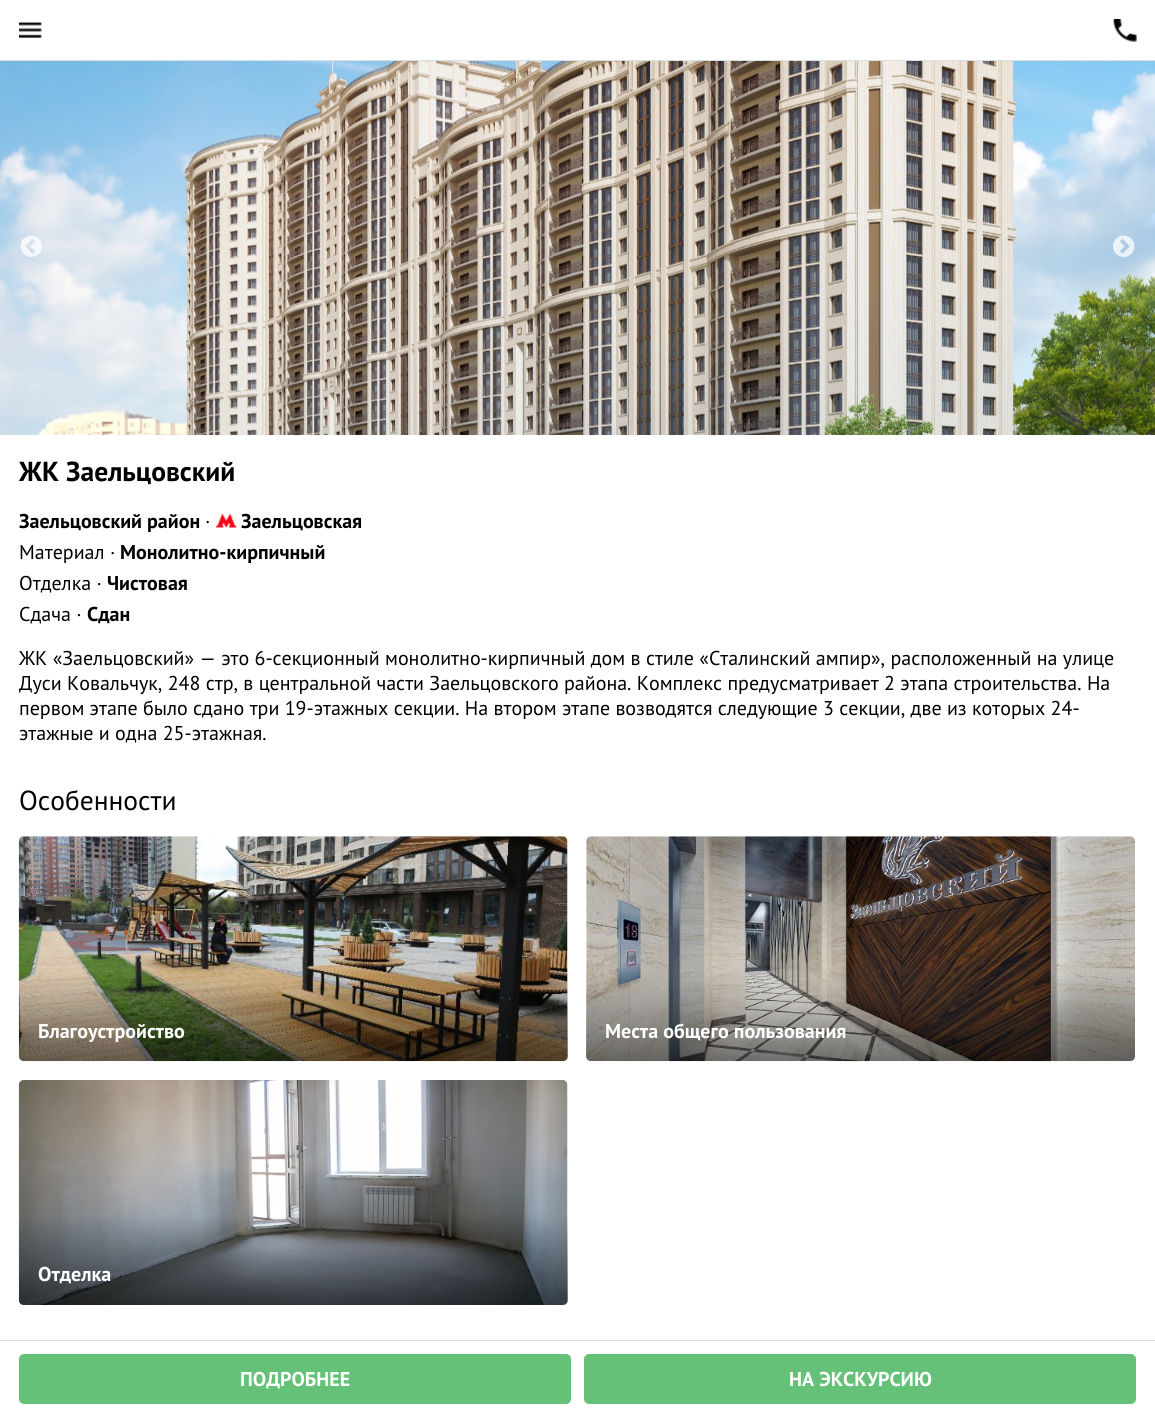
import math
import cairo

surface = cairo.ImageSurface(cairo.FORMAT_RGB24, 1155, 1416)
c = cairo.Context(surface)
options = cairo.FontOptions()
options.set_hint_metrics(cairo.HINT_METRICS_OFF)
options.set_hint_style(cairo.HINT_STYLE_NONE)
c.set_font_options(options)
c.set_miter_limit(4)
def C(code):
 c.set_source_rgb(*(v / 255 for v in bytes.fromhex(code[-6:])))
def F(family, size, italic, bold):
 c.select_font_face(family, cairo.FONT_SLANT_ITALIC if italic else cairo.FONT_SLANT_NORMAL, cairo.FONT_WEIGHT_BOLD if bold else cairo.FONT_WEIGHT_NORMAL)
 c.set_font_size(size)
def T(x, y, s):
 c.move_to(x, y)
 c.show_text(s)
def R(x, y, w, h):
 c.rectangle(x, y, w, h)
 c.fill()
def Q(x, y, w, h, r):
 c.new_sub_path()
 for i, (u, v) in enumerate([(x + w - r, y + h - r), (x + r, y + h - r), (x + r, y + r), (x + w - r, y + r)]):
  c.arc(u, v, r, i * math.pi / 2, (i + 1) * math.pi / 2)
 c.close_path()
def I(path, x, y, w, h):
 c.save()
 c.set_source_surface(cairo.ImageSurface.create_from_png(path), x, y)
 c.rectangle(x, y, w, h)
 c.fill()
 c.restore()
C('ffffff')
c.paint()
C('dbe1e2')
R(0,60,1155,1)
I('1.png',19,21,23,17)
I('2.png',1113,19,24,23)
I('3.png',0,61,1155,374)
I('4.png',20,235,22,22)
I('5.png',1113,235,22,22)
F('PT Sans',27.5,0,1)
C('000000')
T(19,481,'ЖК Заельцовский')
F('PT Sans',20,0,1)
T(19,528,'Заельцовский район')
F('PT Sans',20,0,0)
T(205,528,'·')
I('6.png',216,513,21,15)
F('PT Sans',20,0,1)
T(241,528,'Заельцовская')
F('PT Sans',20,0,0)
T(19,559,'Материал ·')
F('PT Sans',20,0,1)
T(120,559,'Монолитно-кирпичный')
F('PT Sans',20,0,0)
T(19,590,'Отделка ·')
F('PT Sans',20,0,1)
T(107,590,'Чистовая')
F('PT Sans',20,0,0)
T(19,621,'Сдача ·')
F('PT Sans',20,0,1)
T(87,621,'Сдан')
F('PT Sans',20,0,0)
T(19,665,'ЖК «Заельцовский» — это 6-секционный монолитно-кирпичный дом в стиле «Сталинский ампир», расположенный на улице')
T(19,690,'Дуси Ковальчук, 248 стр, в центральной части Заельцовского района. Комплекс предусматривает 2 этапа строительства. На')
T(19,715,'первом этапе было сдано три 19-этажных секции. На втором этапе возводятся следующие 3 секции, две из которых 24-')
T(19,740,'этажные и одна 25-этажная.')
F('PT Sans',27.5,0,0)
T(19,810,'Особенности')
I('7.png',18,836,550,226)
gradient = cairo.LinearGradient(293,971,293,1061)
gradient.add_color_stop_rgba(0,0,0,0,0)
gradient.add_color_stop_rgba(1,0,0,0,.5)
c.set_source(gradient)
c.new_path()
c.move_to(19,971)
c.line_to(568,971)
c.line_to(568,1056)
c.curve_to(568,1059,566,1061,563,1061)
c.line_to(24,1061)
c.curve_to(21,1061,19,1059,19,1056)
c.close_path()
c.fill()
F('PT Sans',20,0,1)
C('ffffff')
T(38,1038,'Благоустройство')
I('8.png',586,836,549,226)
gradient = cairo.LinearGradient(861,971,861,1061)
gradient.add_color_stop_rgba(0,0,0,0,0)
gradient.add_color_stop_rgba(1,0,0,0,.5)
c.set_source(gradient)
c.new_path()
c.move_to(586,971)
c.line_to(1135,971)
c.line_to(1135,1056)
c.curve_to(1135,1059,1133,1061,1130,1061)
c.line_to(591,1061)
c.curve_to(588,1061,586,1059,586,1056)
c.close_path()
c.fill()
C('ffffff')
T(605,1038,'Места общего пользования')
I('9.png',18,1080,550,225)
gradient = cairo.LinearGradient(293,1215,293,1305)
gradient.add_color_stop_rgba(0,0,0,0,0)
gradient.add_color_stop_rgba(1,0,0,0,.5)
c.set_source(gradient)
c.new_path()
c.move_to(19,1215)
c.line_to(568,1215)
c.line_to(568,1300)
c.curve_to(568,1303,566,1305,563,1305)
c.line_to(24,1305)
c.curve_to(21,1305,19,1303,19,1300)
c.close_path()
c.fill()
C('ffffff')
T(38,1281,'Отделка')
C('dbe1e2')
R(0,1340,1155,1)
C('65c178')
Q(19,1354,552,50,5)
c.fill()
C('ffffff')
T(240,1386,'ПОДРОБНЕЕ')
C('65c178')
Q(584,1354,552,50,5)
c.fill()
C('ffffff')
T(789,1386,'НА ЭКСКУРСИЮ')
surface.write_to_png('o.png')
